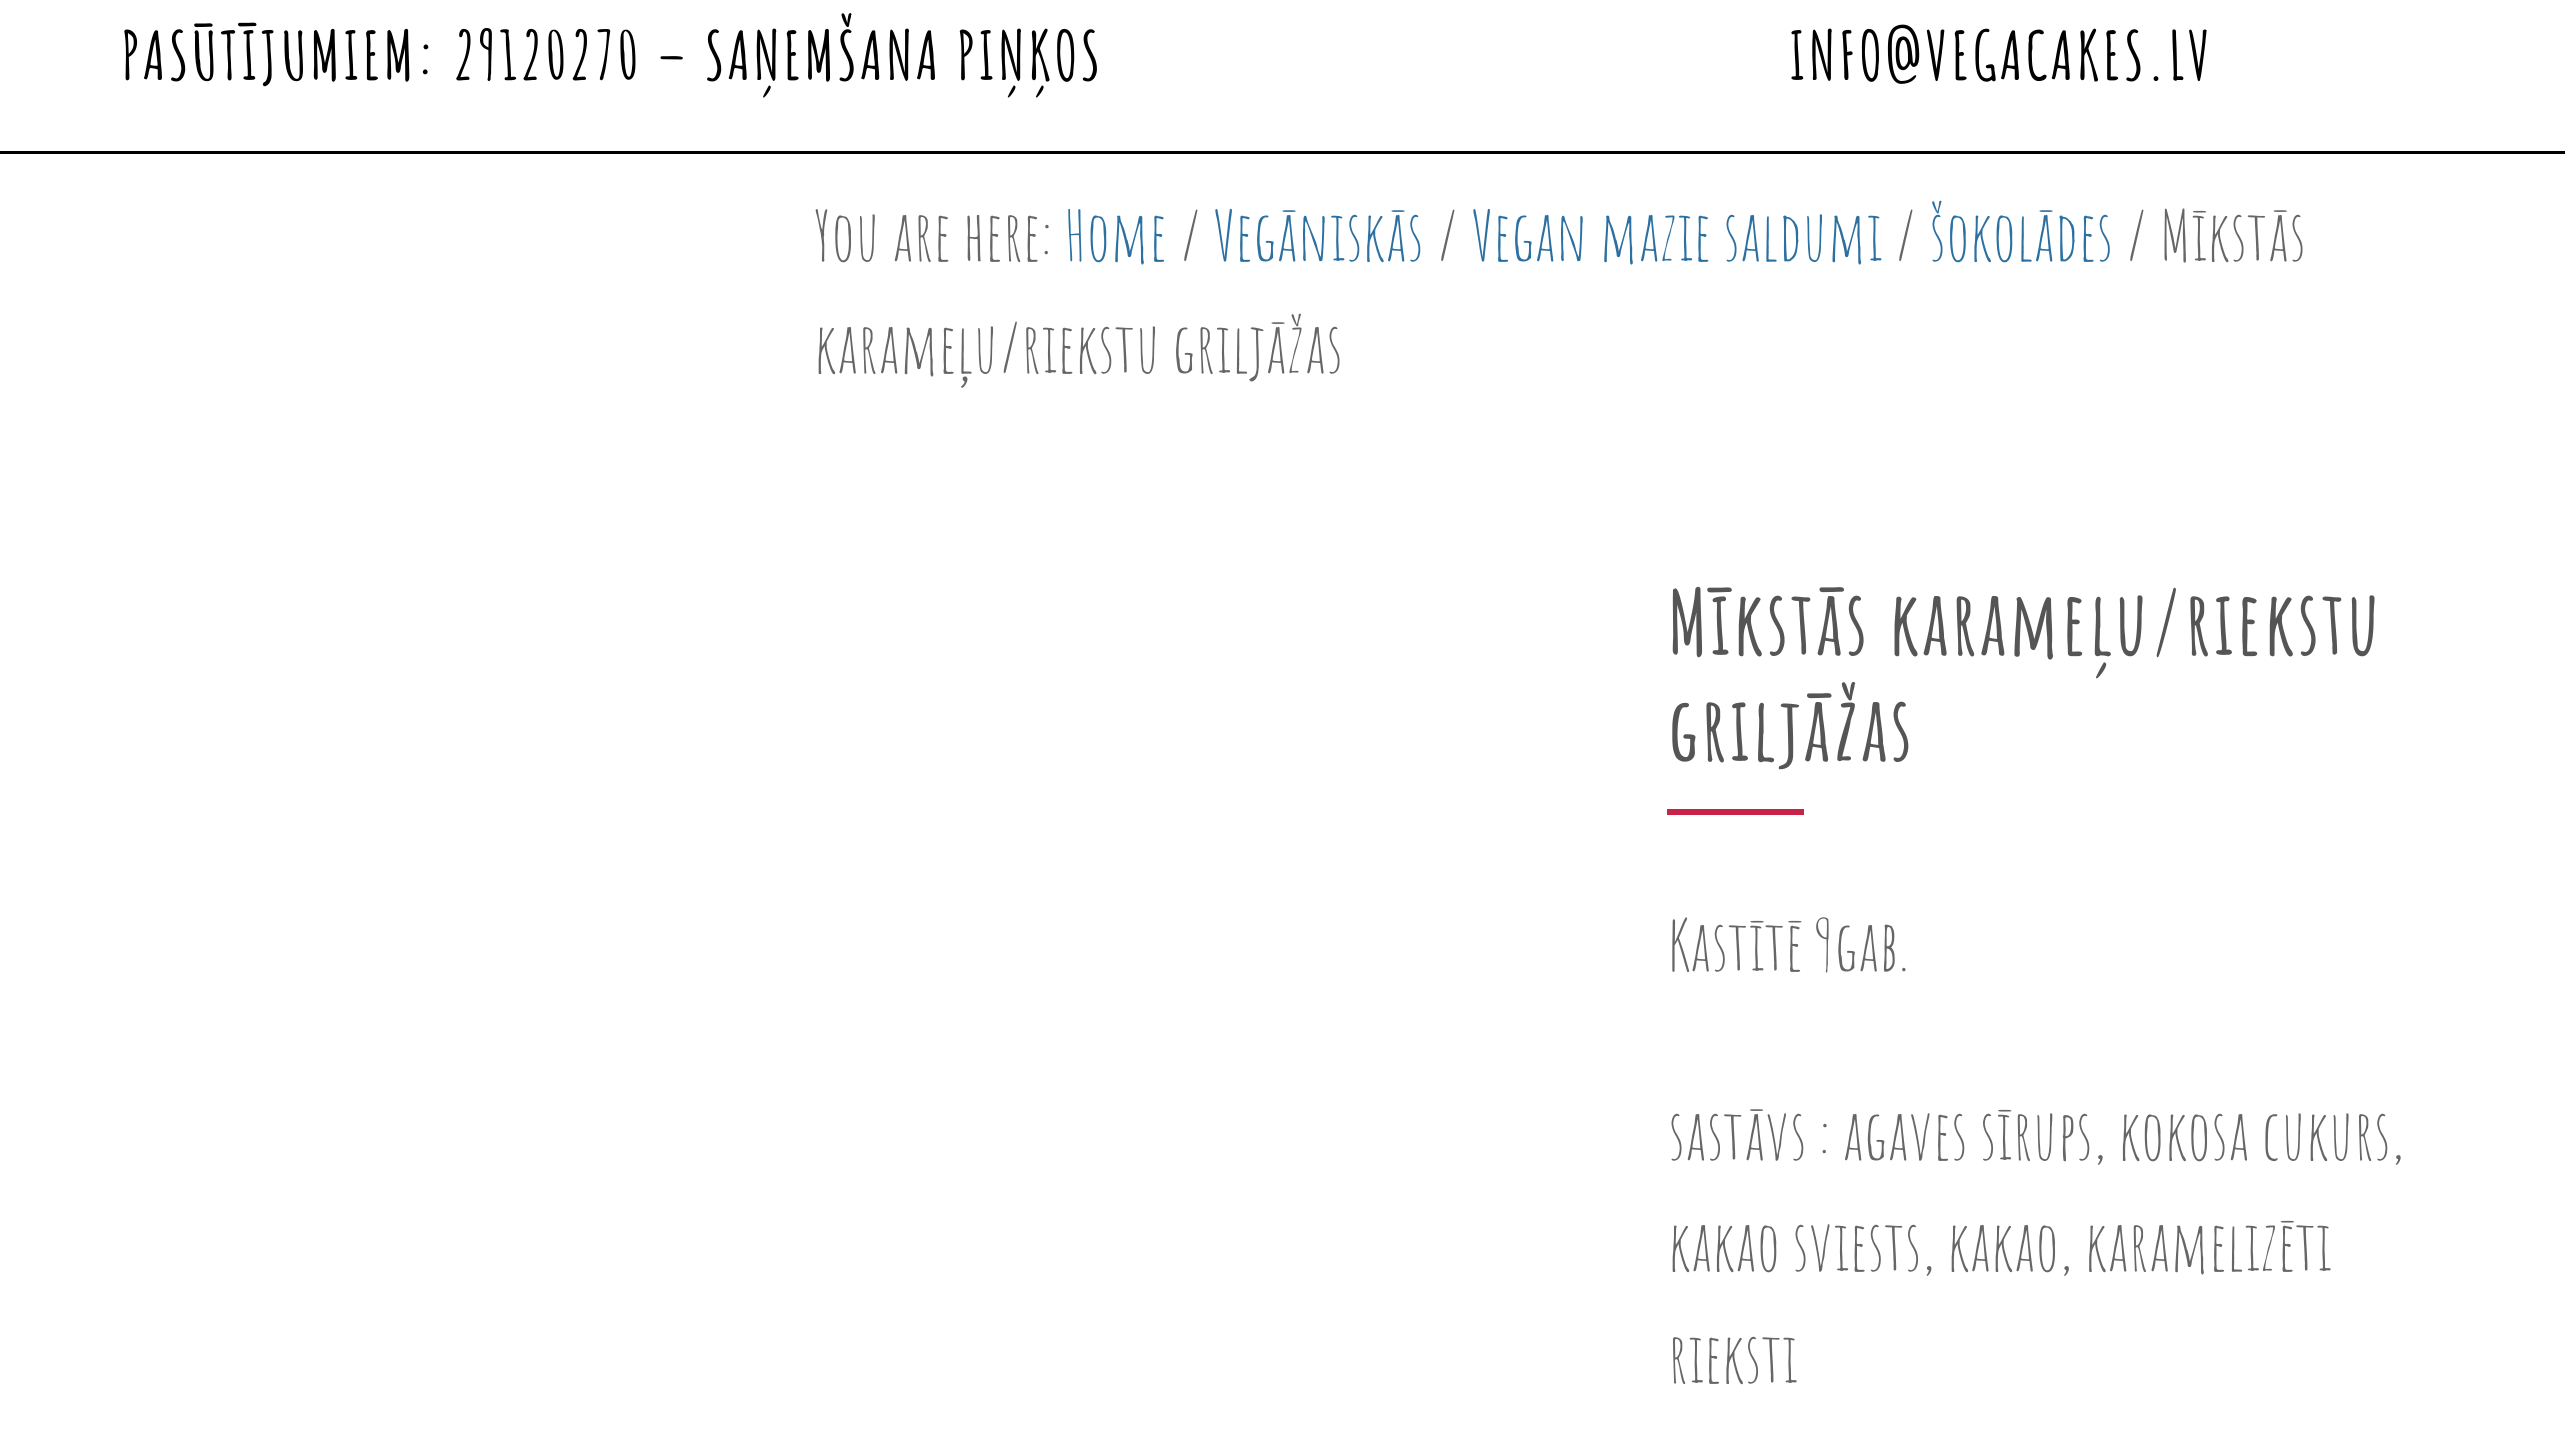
import math
import cairo

surface = cairo.ImageSurface(cairo.FORMAT_RGB24, 2565, 1441)
c = cairo.Context(surface)
options = cairo.FontOptions()
options.set_hint_metrics(cairo.HINT_METRICS_OFF)
options.set_hint_style(cairo.HINT_STYLE_NONE)
c.set_font_options(options)
c.set_miter_limit(4)
def C(code):
 c.set_source_rgb(*(v / 255 for v in bytes.fromhex(code[-6:])))
def F(family, size, italic, bold):
 c.select_font_face(family, cairo.FONT_SLANT_ITALIC if italic else cairo.FONT_SLANT_NORMAL, cairo.FONT_WEIGHT_BOLD if bold else cairo.FONT_WEIGHT_NORMAL)
 c.set_font_size(size)
def T(x, y, s):
 c.move_to(x, y)
 c.show_text(s)
def L(x, y, s, letter, word):
 c.move_to(x, y)
 for ch in s:
  c.show_text(ch)
  c.rel_move_to(letter + word * (ch == ' '), 0)
def R(x, y, w, h):
 c.rectangle(x, y, w, h)
 c.fill()
C('ffffff')
c.paint()
C('000000')
R(0,151,2565,3)
F('Amatic SC',66,0,1)
L(121,80,'PASŪTĪJUMIEM: 29120270 – SAŅEMŠANA PIŅĶOS',2.75,0)
L(1789,80,'INFO@VEGACAKES.LV',2.75,0)
F('Amatic SC',68.75,0,0)
C('666666')
T(814,261,'You are here:')
C('2c70a2')
T(1064,261,'Home')
C('666666')
T(1179,261,'/')
C('2c70a2')
T(1213,261,'Vegāniskās')
C('666666')
T(1436,261,'/')
C('2c70a2')
T(1471,261,'Vegan mazie saldumi')
C('666666')
T(1894,261,'/')
C('2c70a2')
T(1929,261,'šokolādes')
C('666666')
T(2125,261,'/ Mīkstās')
T(814,373,'karameļu/riekstu griljāžas')
F('Amatic SC',88,0,1)
C('555555')
L(1668,655,'Mīkstās karameļu/riekstu',2.75,0)
L(1668,761,'griljāžas',2.75,0)
C('c92249')
R(1667,809,137,6)
F('Amatic SC',68.75,0,0)
C('666666')
T(1668,971,'Kastītē 9gab.')
T(1668,1160,'sastāvs : agaves sīrups, kokosa cukurs,')
T(1668,1271,'kakao sviests, kakao, karamelizēti')
T(1668,1383,'rieksti')
surface.write_to_png('o.png')
